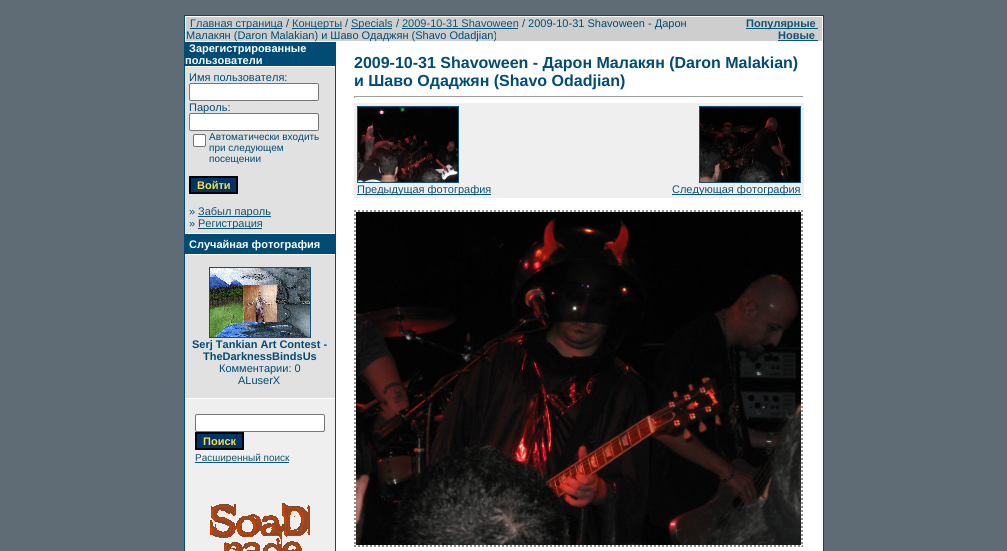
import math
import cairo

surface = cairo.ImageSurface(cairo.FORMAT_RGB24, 1007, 551)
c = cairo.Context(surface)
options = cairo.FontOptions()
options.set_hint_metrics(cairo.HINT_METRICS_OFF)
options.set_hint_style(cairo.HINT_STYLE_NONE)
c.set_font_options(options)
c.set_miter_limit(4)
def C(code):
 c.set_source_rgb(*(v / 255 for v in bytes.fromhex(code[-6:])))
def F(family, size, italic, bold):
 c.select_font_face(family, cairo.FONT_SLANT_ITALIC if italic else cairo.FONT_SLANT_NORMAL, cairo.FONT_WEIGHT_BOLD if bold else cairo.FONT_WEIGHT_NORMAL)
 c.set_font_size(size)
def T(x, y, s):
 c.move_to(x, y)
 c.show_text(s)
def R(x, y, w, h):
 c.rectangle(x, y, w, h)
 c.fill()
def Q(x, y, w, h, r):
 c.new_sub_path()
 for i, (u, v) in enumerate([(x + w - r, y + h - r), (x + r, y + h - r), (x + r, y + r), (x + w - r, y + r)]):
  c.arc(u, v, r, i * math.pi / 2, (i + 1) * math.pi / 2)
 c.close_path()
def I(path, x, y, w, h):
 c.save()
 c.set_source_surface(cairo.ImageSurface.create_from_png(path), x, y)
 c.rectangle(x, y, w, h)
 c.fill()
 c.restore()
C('5f6c76')
c.paint()
C('004c75')
R(184,15,640,536)
C('ffffff')
R(185,16,638,535)
C('cecece')
R(186,17,636,24)
C('0f5475')
R(190,28,92,1)
F('Liberation Sans',11,0,0)
T(190,27,'Главная страница')
C('004c75')
T(286,27,'/')
C('0f5475')
R(292,28,50,1)
T(292,27,'Концерты')
C('004c75')
T(345,27,'/')
C('0f5475')
R(351,28,41,1)
T(351,27,'Specials')
C('004c75')
T(396,27,'/')
C('0f5475')
T(402,27,'2009-10-31 Shavoween')
R(402,28,116,1)
C('004c75')
T(522,27,'/ 2009-10-31 Shavoween - Дарон')
T(186,39,'Малакян (Daron Malakian) и Шаво Одаджян (Shavo Odadjian)')
C('0f5475')
R(746,28,72,1)
F('Liberation Sans',11,0,1)
T(746,27,'Популярные')
T(778,39,'Новые')
R(778,40,40,1)
C('efefef')
R(185,399,150,152)
C('004c75')
R(185,42,150,24)
C('ffffff')
T(189,52,'Зарегистрированные')
T(185,64,'пользователи')
C('e1e1e1')
R(185,67,150,166)
F('Liberation Sans',11,0,0)
C('004c75')
T(189,81,'Имя пользователя:')
C('ffffff')
Q(189.5,83.5,129,17,1.5)
c.fill_preserve()
C('767676')
c.set_line_width(1)
c.stroke()
C('004c75')
T(189,111,'Пароль:')
C('ffffff')
Q(189.5,113.5,129,17,1.5)
c.fill_preserve()
C('767676')
c.stroke()
C('ffffff')
Q(193.5,134.5,12,12,1.5)
c.fill_preserve()
C('767676')
c.stroke()
F('Liberation Sans',10,0,0)
C('004c75')
T(209,140,'Автоматически входить')
T(209,151,'при следующем')
T(209,162,'посещении')
C('003366')
c.rectangle(190,177,47,16)
c.fill_preserve()
C('000000')
c.set_line_width(2)
c.stroke()
F('Liberation Sans',11,0,1)
C('fcdc43')
T(197,189,'Войти')
F('Liberation Sans',11,0,0)
C('004c75')
T(189,215,'»')
C('0f5475')
R(198,216,73,1)
T(198,215,'Забыл пароль')
C('004c75')
T(189,227,'»')
C('0f5475')
R(198,228,64,1)
T(198,227,'Регистрация')
C('004c75')
R(185,234,150,20)
F('Liberation Sans',11,0,1)
C('ffffff')
T(189,248,'Случайная фотография')
C('e1e1e1')
R(185,255,150,143)
c.rectangle(209.5,267.5,101,70)
C('0f5475')
c.set_line_width(1)
c.stroke()
I('1.png',210,268,100,69)
C('004c75')
T(192,348,'Serj Tankian Art Contest -')
T(203,360,'TheDarknessBindsUs')
F('Liberation Sans',11,0,0)
T(219,372,'Комментарии: 0')
T(238,384,'ALuserX')
C('ffffff')
Q(195.5,414.5,129,17,1.5)
c.fill_preserve()
C('767676')
c.stroke()
C('003366')
c.rectangle(196,433,47,16)
c.fill_preserve()
C('000000')
c.set_line_width(2)
c.stroke()
F('Liberation Sans',11,0,1)
C('fcdc43')
T(203,445,'Поиск')
C('0f5475')
R(195,462,94,1)
F('Liberation Sans',10,0,0)
T(195,461,'Расширенный поиск')
I('2.png',210,503,100,48)
C('004c75')
R(335,42,1,509)
F('Liberation Sans',16,0,1)
T(354,68,'2009-10-31 Shavoween - Дарон Малакян (Daron Malakian)')
T(354,86,'и Шаво Одаджян (Shavo Odadjian)')
C('9f9f9f')
R(354,96,450,1)
C('eeeeee')
R(803,96,1,2)
C('9f9f9f')
R(354,96,1,2)
C('efefef')
R(354,103,450,95)
c.rectangle(357.5,106.5,101,76)
C('0f5475')
c.set_line_width(1)
c.stroke()
I('3.png',358,107,100,75)
R(357,194,134,1)
F('Liberation Sans',11,0,0)
T(357,193,'Предыдущая фотография')
c.rectangle(699.5,106.5,101,76)
c.stroke()
I('4.png',700,107,100,75)
R(672,194,129,1)
T(672,193,'Следующая фотография')
c.new_path()
c.move_to(354,211)
c.line_to(803,211)
C('909090')
c.set_line_width(2)
c.set_dash([2,2])
c.stroke()
c.new_path()
c.move_to(802,210)
c.line_to(802,547)
c.stroke()
c.new_path()
c.move_to(354,546)
c.line_to(803,546)
c.stroke()
c.new_path()
c.move_to(355,210)
c.line_to(355,547)
c.stroke()
I('5.png',356,212,445,333)
surface.write_to_png('o.png')
